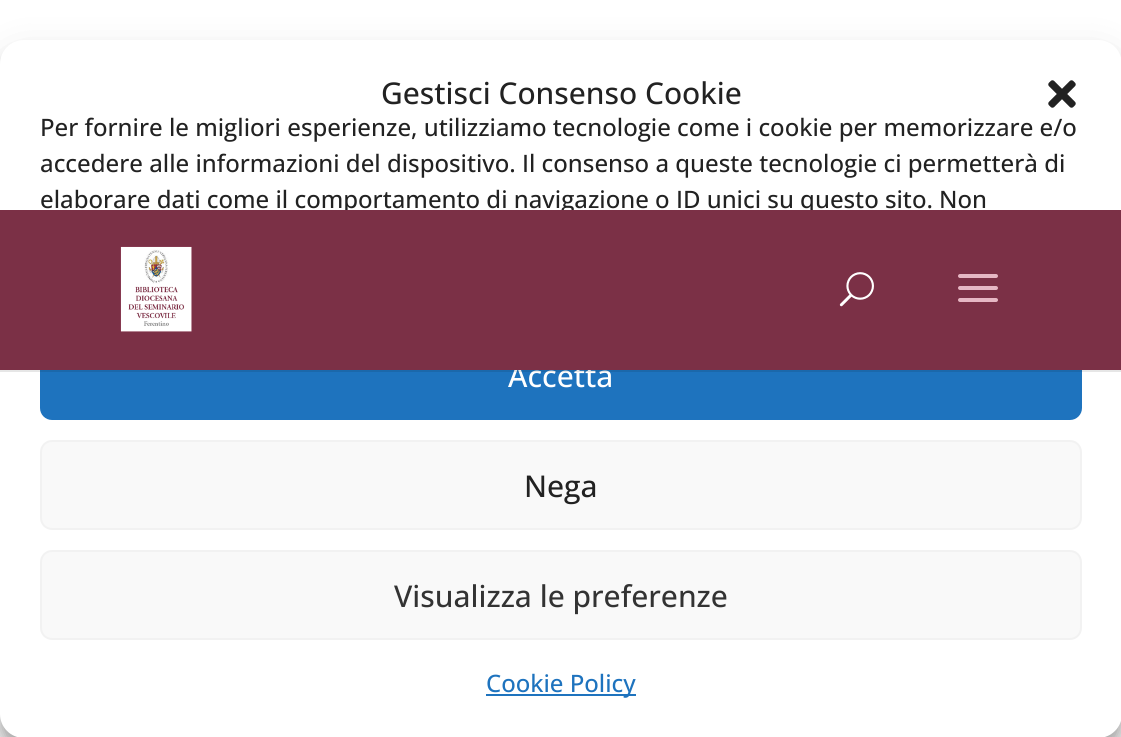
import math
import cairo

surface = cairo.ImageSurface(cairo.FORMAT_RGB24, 1121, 737)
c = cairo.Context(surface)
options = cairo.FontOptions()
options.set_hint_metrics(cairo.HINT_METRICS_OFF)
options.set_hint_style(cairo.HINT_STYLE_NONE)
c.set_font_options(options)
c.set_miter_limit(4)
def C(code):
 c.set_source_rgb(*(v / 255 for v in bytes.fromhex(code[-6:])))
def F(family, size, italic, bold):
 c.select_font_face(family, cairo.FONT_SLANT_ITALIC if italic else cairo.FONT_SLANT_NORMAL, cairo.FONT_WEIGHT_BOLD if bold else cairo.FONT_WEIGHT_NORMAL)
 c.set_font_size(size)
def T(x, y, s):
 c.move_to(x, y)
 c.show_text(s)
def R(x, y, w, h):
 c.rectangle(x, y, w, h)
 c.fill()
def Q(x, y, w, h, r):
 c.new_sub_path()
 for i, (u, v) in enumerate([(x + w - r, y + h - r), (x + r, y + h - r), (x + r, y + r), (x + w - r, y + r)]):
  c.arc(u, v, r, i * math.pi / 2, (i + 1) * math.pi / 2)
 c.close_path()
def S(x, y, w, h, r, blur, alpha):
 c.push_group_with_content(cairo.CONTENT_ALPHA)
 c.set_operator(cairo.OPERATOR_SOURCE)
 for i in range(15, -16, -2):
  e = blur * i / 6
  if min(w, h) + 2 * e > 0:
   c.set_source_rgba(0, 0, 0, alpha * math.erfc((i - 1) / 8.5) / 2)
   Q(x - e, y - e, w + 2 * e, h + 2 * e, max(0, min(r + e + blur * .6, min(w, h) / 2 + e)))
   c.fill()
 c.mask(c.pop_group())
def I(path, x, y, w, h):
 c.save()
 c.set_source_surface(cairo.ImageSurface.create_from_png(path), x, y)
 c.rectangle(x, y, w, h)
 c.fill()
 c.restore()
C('ffffff')
c.paint()
C('000000')
S(0,52,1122,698,24,6,.23)
S(0,60,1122,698,24,20,.19)
C('ffffff')
Q(0,40,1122,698,24)
c.fill()
F('Open Sans Medium',30,0,0)
C('222222')
T(381,104,'Gestisci Consenso Cookie')
I('1.png',1048,80,28,28)
F('Open Sans Medium',24,0,0)
T(40,136,'Per fornire le migliori esperienze, utilizziamo tecnologie come i cookie per memorizzare e/o')
T(40,172,'accedere alle informazioni del dispositivo. Il consenso a queste tecnologie ci permetterà di')
T(40,208,'elaborare dati come il comportamento di navigazione o ID unici su questo sito. Non')
C('1e73be')
Q(41,331,1040,88,11)
c.fill_preserve()
c.stroke()
F('Open Sans Medium',30,0,0)
C('ffffff')
T(508,387,'Accetta')
C('f9f9f9')
Q(41,441,1040,88,11)
c.fill_preserve()
C('f2f2f2')
c.stroke()
C('222222')
T(524,497,'Nega')
C('f9f9f9')
Q(41,551,1040,88,11)
c.fill_preserve()
C('f2f2f2')
c.stroke()
C('333333')
T(394,607,'Visualizza le preferenze')
C('1e73be')
R(486,694,150,2)
F('Open Sans Medium',24,0,0)
T(486,692,'Cookie Policy')
c.set_source_rgba(0,0,0,0.1)
R(0,370,1121,2)
C('7b3046')
R(0,210,1121,160)
I('2.png',120,246,72,86)
I('3.png',839,272,35,35)
I('4.png',958,274,40,28)
surface.write_to_png('o.png')
